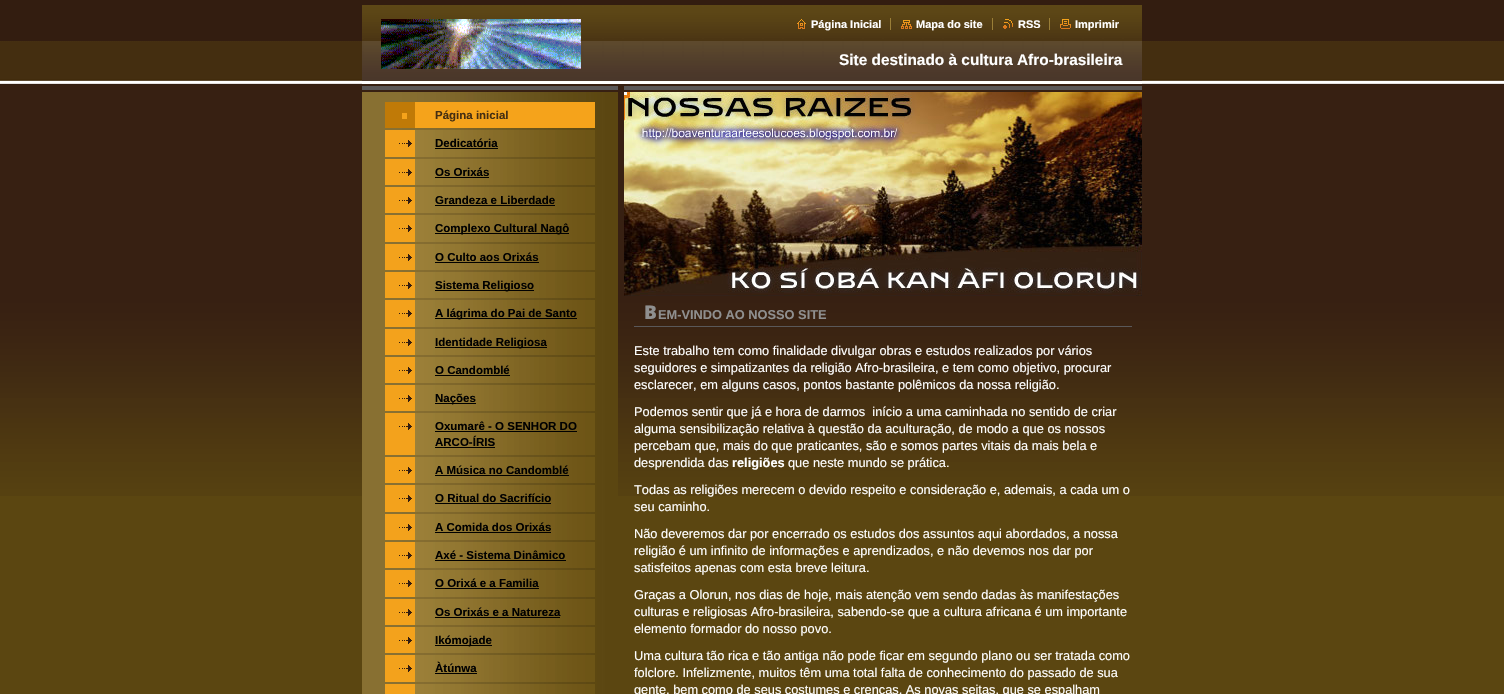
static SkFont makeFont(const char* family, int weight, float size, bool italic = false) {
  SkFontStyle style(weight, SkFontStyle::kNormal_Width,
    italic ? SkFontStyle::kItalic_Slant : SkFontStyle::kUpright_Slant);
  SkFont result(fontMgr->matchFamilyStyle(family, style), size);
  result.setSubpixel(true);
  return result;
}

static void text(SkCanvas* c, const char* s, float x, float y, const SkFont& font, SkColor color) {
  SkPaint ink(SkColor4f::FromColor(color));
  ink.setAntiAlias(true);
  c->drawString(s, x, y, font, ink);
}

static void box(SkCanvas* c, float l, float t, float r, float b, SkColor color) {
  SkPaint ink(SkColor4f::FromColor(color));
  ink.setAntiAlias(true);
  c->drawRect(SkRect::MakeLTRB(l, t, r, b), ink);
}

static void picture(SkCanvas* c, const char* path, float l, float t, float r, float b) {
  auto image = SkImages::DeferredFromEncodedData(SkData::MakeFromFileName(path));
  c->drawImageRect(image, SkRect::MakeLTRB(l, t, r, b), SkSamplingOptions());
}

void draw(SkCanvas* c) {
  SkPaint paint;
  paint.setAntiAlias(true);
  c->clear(0xff5b4611);
  picture(c, "img_01.png", 0, 0, 1504, 496);
  picture(c, "img_02.png", 362, 0, 1142, 81);
  box(c, 362, 83, 1142, 84, 0xffffffff);
  picture(c, "img_03.png", 381, 19, 581, 69);
  picture(c, "img_04.png", 797, 19, 806, 29);
  SkFont face1 = makeFont("Liberation Sans", 700, 11);
  text(c, "Página Inicial", 811, 28, face1, 0xffffffff);
  picture(c, "img_05.png", 901, 20, 912, 29);
  text(c, "Mapa do site", 916, 28, face1, 0xffffffff);
  box(c, 890, 18, 891, 30, 0xff9a7e37);
  picture(c, "img_06.png", 1003, 19, 1013, 29);
  text(c, "RSS", 1018, 28, face1, 0xffffffff);
  box(c, 992, 18, 993, 30, 0xff9a7e37);
  picture(c, "img_07.png", 1060, 19, 1071, 29);
  text(c, "Imprimir", 1075, 28, face1, 0xffffffff);
  box(c, 1049, 18, 1050, 30, 0xff9a7e37);
  SkFont face2 = makeFont("Liberation Sans", 700, 15.4f);
  text(c, "Site destinado à cultura Afro-brasileira", 839, 65, face2, 0xffffffff);
  box(c, 362, 84, 1142, 85, 0xff372012);
  picture(c, "img_08.png", 362, 86, 618, 92);
  picture(c, "img_09.png", 362, 92, 618, 694);
  picture(c, "img_10.png", 385, 102, 595, 128);
  box(c, 402, 113, 407, 119, 0xfff5a31b);
  SkFont face3 = makeFont("Liberation Sans", 700, 11.5f);
  text(c, "Página inicial", 435, 119, face3, 0xff442e12);
  picture(c, "img_11.png", 385, 130, 595, 157);
  picture(c, "img_12.png", 399, 140, 412, 147);
  text(c, "Dedicatória", 435, 147, face3, 0xff000000);
  box(c, 435, 148, 498, 149, 0xff000000);
  picture(c, "img_13.png", 385, 159, 595, 185);
  picture(c, "img_12.png", 399, 169, 412, 176);
  text(c, "Os Orixás", 435, 176, face3, 0xff000000);
  box(c, 435, 177, 489, 178, 0xff000000);
  picture(c, "img_13.png", 385, 187, 595, 213);
  picture(c, "img_12.png", 399, 197, 412, 204);
  text(c, "Grandeza e Liberdade", 435, 204, face3, 0xff000000);
  box(c, 435, 205, 555, 206, 0xff000000);
  picture(c, "img_11.png", 385, 215, 595, 242);
  picture(c, "img_12.png", 399, 225, 412, 232);
  box(c, 435, 233, 569, 234, 0xff000000);
  text(c, "Complexo Cultural Nagô", 435, 232, face3, 0xff000000);
  picture(c, "img_13.png", 385, 244, 595, 270);
  picture(c, "img_12.png", 399, 254, 412, 261);
  text(c, "O Culto aos Orixás", 435, 261, face3, 0xff000000);
  box(c, 435, 262, 539, 263, 0xff000000);
  picture(c, "img_13.png", 385, 272, 595, 298);
  picture(c, "img_12.png", 399, 282, 412, 289);
  box(c, 435, 290, 534, 291, 0xff000000);
  text(c, "Sistema Religioso", 435, 289, face3, 0xff000000);
  picture(c, "img_11.png", 385, 300, 595, 327);
  picture(c, "img_12.png", 399, 310, 412, 317);
  box(c, 435, 318, 577, 319, 0xff000000);
  text(c, "A lágrima do Pai de Santo", 435, 317, face3, 0xff000000);
  picture(c, "img_13.png", 385, 329, 595, 355);
  picture(c, "img_12.png", 399, 339, 412, 346);
  box(c, 435, 347, 547, 348, 0xff000000);
  text(c, "Identidade Religiosa", 435, 346, face3, 0xff000000);
  picture(c, "img_13.png", 385, 357, 595, 383);
  picture(c, "img_12.png", 399, 367, 412, 374);
  text(c, "O Candomblé", 435, 374, face3, 0xff000000);
  box(c, 435, 375, 510, 376, 0xff000000);
  picture(c, "img_13.png", 385, 385, 595, 411);
  picture(c, "img_12.png", 399, 395, 412, 402);
  box(c, 435, 403, 476, 404, 0xff000000);
  text(c, "Nações", 435, 402, face3, 0xff000000);
  picture(c, "img_14.png", 385, 413, 595, 455);
  picture(c, "img_12.png", 399, 423, 412, 430);
  text(c, "Oxumarê - O SENHOR DO", 435, 430, face3, 0xff000000);
  box(c, 435, 431, 577, 432, 0xff000000);
  text(c, "ARCO-ÍRIS", 435, 446, face3, 0xff000000);
  box(c, 435, 447, 495, 448, 0xff000000);
  picture(c, "img_13.png", 385, 457, 595, 483);
  picture(c, "img_12.png", 399, 467, 412, 474);
  text(c, "A Música no Candomblé", 435, 474, face3, 0xff000000);
  box(c, 435, 475, 569, 476, 0xff000000);
  picture(c, "img_11.png", 385, 485, 595, 512);
  picture(c, "img_12.png", 399, 495, 412, 502);
  text(c, "O Ritual do Sacrifício", 435, 502, face3, 0xff000000);
  box(c, 435, 503, 551, 504, 0xff000000);
  picture(c, "img_13.png", 385, 514, 595, 540);
  picture(c, "img_12.png", 399, 524, 412, 531);
  text(c, "A Comida dos Orixás", 435, 531, face3, 0xff000000);
  box(c, 435, 532, 551, 533, 0xff000000);
  picture(c, "img_13.png", 385, 542, 595, 568);
  picture(c, "img_12.png", 399, 552, 412, 559);
  text(c, "Axé - Sistema Dinâmico", 435, 559, face3, 0xff000000);
  box(c, 435, 560, 566, 561, 0xff000000);
  picture(c, "img_11.png", 385, 570, 595, 597);
  picture(c, "img_12.png", 399, 580, 412, 587);
  text(c, "O Orixá e a Familia", 435, 587, face3, 0xff000000);
  box(c, 435, 588, 539, 589, 0xff000000);
  picture(c, "img_13.png", 385, 599, 595, 625);
  picture(c, "img_12.png", 399, 609, 412, 616);
  text(c, "Os Orixás e a Natureza", 435, 616, face3, 0xff000000);
  box(c, 435, 617, 560, 618, 0xff000000);
  picture(c, "img_13.png", 385, 627, 595, 653);
  picture(c, "img_12.png", 399, 637, 412, 644);
  box(c, 435, 645, 492, 646, 0xff000000);
  text(c, "Ikómojade", 435, 644, face3, 0xff000000);
  picture(c, "img_11.png", 385, 655, 595, 682);
  picture(c, "img_12.png", 399, 665, 412, 672);
  text(c, "Àtúnwa", 435, 672, face3, 0xff000000);
  box(c, 435, 673, 477, 674, 0xff000000);
  picture(c, "img_15.png", 385, 684, 595, 694);
  box(c, 624, 86, 1142, 90, 0xff5b5858);
  picture(c, "img_16.png", 624, 92, 1142, 296);
  box(c, 634, 326, 1132, 327, 0xff5a5859);
  SkFont face4 = makeFont("Noto Sans", 900, 19);
  text(c, "B", 644, 319, face4, 0xff8f8f8f);
  SkFont face5 = makeFont("Liberation Sans", 700, 12.8f);
  text(c, "EM-VINDO AO NOSSO SITE", 658, 319, face5, 0xff8f8f8f);
  SkFont face6 = makeFont("Liberation Sans", 400, 12.8f);
  text(c, "Este trabalho tem como finalidade divulgar obras e estudos realizados por vários", 634, 355, face6, 0xffffffff);
  text(c, "seguidores e simpatizantes da religião Afro-brasileira, e tem como objetivo, procurar", 634, 372, face6, 0xffffffff);
  text(c, "esclarecer, em alguns casos, pontos bastante polêmicos da nossa religião.", 634, 389, face6, 0xffffffff);
  text(c, "Podemos sentir que já e hora de darmos  início a uma caminhada no sentido de criar", 634, 416, face6, 0xffffffff);
  text(c, "alguma sensibilização relativa à questão da aculturação, de modo a que os nossos", 634, 433, face6, 0xffffffff);
  text(c, "percebam que, mais do que praticantes, são e somos partes vitais da mais bela e", 634, 450, face6, 0xffffffff);
  text(c, "desprendida das", 634, 467, face6, 0xffffffff);
  text(c, "religiões", 732, 467, face5, 0xffffffff);
  text(c, "que neste mundo se prática.", 788, 467, face6, 0xffffffff);
  text(c, "Todas as religiões merecem o devido respeito e consideração e, ademais, a cada um o", 634, 494, face6, 0xffffffff);
  text(c, "seu caminho.", 634, 511, face6, 0xffffffff);
  text(c, "Não deveremos dar por encerrado os estudos dos assuntos aqui abordados, a nossa", 634, 538, face6, 0xffffffff);
  text(c, "religião é um infinito de informações e aprendizados, e não devemos nos dar por", 634, 555, face6, 0xffffffff);
  text(c, "satisfeitos apenas com esta breve leitura.", 634, 572, face6, 0xffffffff);
  text(c, "Graças a Olorun, nos dias de hoje, mais atenção vem sendo dadas às manifestações", 634, 599, face6, 0xffffffff);
  text(c, "culturas e religiosas Afro-brasileira, sabendo-se que a cultura africana é um importante", 634, 616, face6, 0xffffffff);
  text(c, "elemento formador do nosso povo.", 634, 633, face6, 0xffffffff);
  text(c, "Uma cultura tão rica e tão antiga não pode ficar em segundo plano ou ser tratada como", 634, 660, face6, 0xffffffff);
  text(c, "folclore. Infelizmente, muitos têm uma total falta de conhecimento do passado de sua", 634, 677, face6, 0xffffffff);
  text(c, "gente, bem como de seus costumes e crenças. As novas seitas, que se espalham", 634, 694, face6, 0xffffffff);
}
